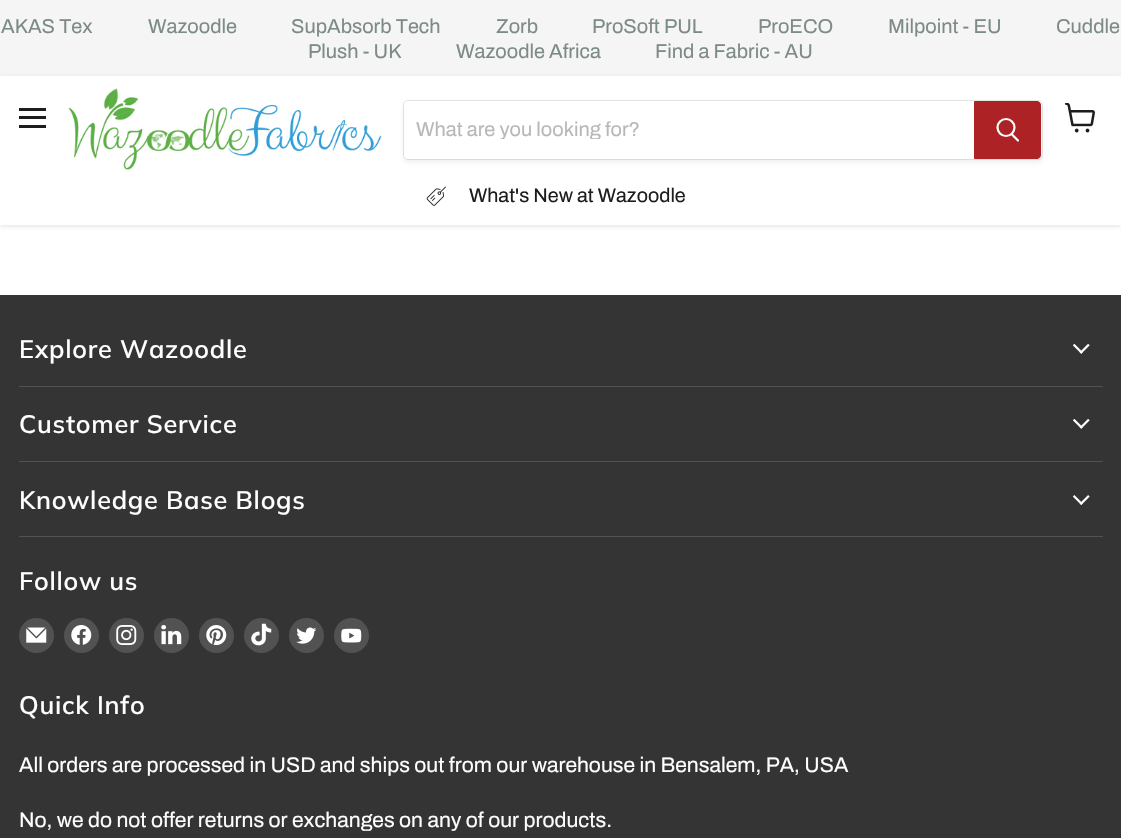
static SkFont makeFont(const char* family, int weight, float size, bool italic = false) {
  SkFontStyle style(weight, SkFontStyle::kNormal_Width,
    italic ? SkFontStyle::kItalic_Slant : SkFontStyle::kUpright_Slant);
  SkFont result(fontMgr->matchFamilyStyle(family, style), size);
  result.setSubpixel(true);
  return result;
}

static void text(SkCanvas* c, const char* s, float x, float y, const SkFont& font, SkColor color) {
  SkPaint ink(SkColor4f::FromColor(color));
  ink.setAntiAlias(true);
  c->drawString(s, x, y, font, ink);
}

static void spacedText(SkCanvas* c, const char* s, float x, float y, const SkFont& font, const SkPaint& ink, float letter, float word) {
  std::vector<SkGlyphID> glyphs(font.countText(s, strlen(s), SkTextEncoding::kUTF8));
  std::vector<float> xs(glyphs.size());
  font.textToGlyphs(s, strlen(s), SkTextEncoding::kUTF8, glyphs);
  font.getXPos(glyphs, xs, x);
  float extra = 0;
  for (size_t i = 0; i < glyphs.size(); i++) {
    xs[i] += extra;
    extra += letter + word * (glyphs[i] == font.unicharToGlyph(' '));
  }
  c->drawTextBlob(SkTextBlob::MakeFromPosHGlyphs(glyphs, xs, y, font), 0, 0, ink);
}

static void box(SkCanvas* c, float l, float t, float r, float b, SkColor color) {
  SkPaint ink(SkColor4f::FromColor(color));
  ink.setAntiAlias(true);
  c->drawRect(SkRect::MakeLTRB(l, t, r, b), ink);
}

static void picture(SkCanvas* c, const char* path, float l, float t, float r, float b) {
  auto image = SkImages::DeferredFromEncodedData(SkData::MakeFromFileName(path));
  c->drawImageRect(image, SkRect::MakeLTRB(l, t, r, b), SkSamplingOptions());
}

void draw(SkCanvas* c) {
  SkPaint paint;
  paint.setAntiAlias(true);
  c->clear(0xffffffff);
  box(c, 0, 0, 1121, 76, 0xfff5f5f5);
  SkFont face1 = makeFont("Archivo", 600, 20);
  text(c, "AKAS Tex", 1, 33, face1, 0xff7d8b86);
  text(c, "Wazoodle", 148, 33, face1, 0xff7d8b86);
  text(c, "SupAbsorb Tech", 291, 33, face1, 0xff7d8b86);
  text(c, "Zorb", 496, 33, face1, 0xff7d8b86);
  text(c, "ProSoft PUL", 592, 33, face1, 0xff7d8b86);
  text(c, "ProECO", 758, 33, face1, 0xff7d8b86);
  text(c, "Milpoint - EU", 888, 33, face1, 0xff7d8b86);
  text(c, "Cuddle", 1056, 33, face1, 0xff7d8b86);
  text(c, "Plush - UK", 308, 58, face1, 0xff7d8b86);
  text(c, "Wazoodle Africa", 456, 58, face1, 0xff7d8b86);
  text(c, "Find a Fabric - AU", 655, 58, face1, 0xff7d8b86);
  paint.setColor(0x40808080);
  paint.setMaskFilter(SkMaskFilter::MakeBlur(kNormal_SkBlurStyle, 2.5f));
  c->drawRect(SkRect::MakeLTRB(0, 78, 1121, 226), paint);
  paint.setMaskFilter(nullptr);
  box(c, 0, 76, 1121, 225, 0xffffffff);
  box(c, 19, 108, 46, 111, 0xff1d1d1d);
  box(c, 19, 116, 46, 119, 0xff1d1d1d);
  box(c, 19, 125, 46, 128, 0xff1d1d1d);
  picture(c, "img_01.png", 1065, 103, 1095, 133);
  picture(c, "img_02.png", 68, 88, 382, 170);
  paint.setColor(0x1c808080);
  paint.setMaskFilter(SkMaskFilter::MakeBlur(kNormal_SkBlurStyle, 2));
  c->drawRoundRect(SkRect::MakeLTRB(403, 103, 1043, 163), 5, 5, paint);
  paint.setMaskFilter(nullptr);
  paint.setStyle(SkPaint::kStroke_Style);
  paint.setStrokeWidth(1);
  paint.setColor(0x33808080);
  c->drawRoundRect(SkRect::MakeLTRB(403.5f, 100.5f, 1042.5f, 159.5f), 4.5f, 4.5f, paint);
  paint.setStyle(SkPaint::kFill_Style);
  paint.setColor(0xffffffff);
  c->drawPath(SkPathBuilder().moveTo(408, 101).lineTo(974, 101).lineTo(974, 159).lineTo(408, 159).cubicTo(406, 159, 404, 157, 404, 155).lineTo(404, 105).cubicTo(404, 103, 406, 101, 408, 101).close().detach(), paint);
  c->save();
  c->clipRect(SkRect::MakeLTRB(416, 118, 961, 139));
  text(c, "What are you looking for?", 416, 136, face1, 0xffb8b8b8);
  c->restore();
  paint.setColor(0xffac2225);
  c->drawPath(SkPathBuilder().moveTo(974.5f, 101.5f).lineTo(1037, 101.5f).cubicTo(1039, 101.5f, 1040.5f, 103, 1040.5f, 105).lineTo(1040.5f, 155).cubicTo(1040.5f, 157, 1039, 158.5f, 1037, 158.5f).lineTo(974.5f, 158.5f).close().detach(), paint);
  paint.setStyle(SkPaint::kStroke_Style);
  c->drawPath(SkPathBuilder().moveTo(974.5f, 101.5f).lineTo(1037, 101.5f).cubicTo(1039, 101.5f, 1040.5f, 103, 1040.5f, 105).lineTo(1040.5f, 155).cubicTo(1040.5f, 157, 1039, 158.5f, 1037, 158.5f).lineTo(974.5f, 158.5f).close().detach(), paint);
  paint.setStrokeWidth(2.2f);
  paint.setStrokeCap(SkPaint::kRound_Cap);
  paint.setColor(0xffffffff);
  c->drawPath(SkPathBuilder().moveTo(1018, 140.5f).lineTo(1012, 134.5f).detach(), paint);
  paint.setStrokeCap(SkPaint::kButt_Cap);
  c->drawCircle(1006, 127.5f, 8.5f, paint);
  picture(c, "img_03.png", 426, 186, 446, 206);
  SkFont face2 = makeFont("Archivo", 600, 19.75f);
  text(c, "What's New at Wazoodle", 469, 202, face2, 0xff1d1d1d);
  box(c, 0, 295, 1121, 838, 0xff343434);
  box(c, 19, 386, 1103, 387, 0xff525252);
  SkFont face3 = makeFont("Muli", 600, 25.25f);
  paint.setStyle(SkPaint::kFill_Style);
  spacedText(c, "Explore Wazoodle", 19, 358, face3, paint, 0.75f, 0);
  picture(c, "img_04.png", 1073, 344, 1090, 354);
  box(c, 19, 461, 1103, 462, 0xff525252);
  spacedText(c, "Customer Service", 19, 433, face3, paint, 0.75f, 0);
  picture(c, "img_04.png", 1073, 419, 1090, 429);
  box(c, 19, 536, 1103, 537, 0xff525252);
  spacedText(c, "Knowledge Base Blogs", 19, 509, face3, paint, 0.75f, 0);
  picture(c, "img_05.png", 1073, 495, 1090, 505);
  spacedText(c, "Follow us", 19, 590, face3, paint, 0.75f, 0);
  paint.setColor(0xff525252);
  c->drawCircle(36.5f, 635.5f, 17.5f, paint);
  picture(c, "img_06.png", 26, 627, 47, 643);
  c->drawCircle(81.5f, 635.5f, 17.5f, paint);
  picture(c, "img_07.png", 71, 625, 92, 645);
  c->drawCircle(126.5f, 635.5f, 17.5f, paint);
  picture(c, "img_08.png", 116, 625, 137, 645);
  c->drawCircle(171.5f, 635.5f, 17.5f, paint);
  picture(c, "img_09.png", 161, 625, 182, 645);
  c->drawCircle(216.5f, 635.5f, 17.5f, paint);
  picture(c, "img_10.png", 206, 625, 227, 646);
  c->drawCircle(261.5f, 635.5f, 17.5f, paint);
  picture(c, "img_11.png", 251, 623, 272, 646);
  c->drawCircle(306.5f, 635.5f, 17.5f, paint);
  picture(c, "img_12.png", 296, 627, 317, 644);
  c->drawCircle(351.5f, 635.5f, 17.5f, paint);
  picture(c, "img_13.png", 341, 628, 362, 643);
  paint.setColor(0xffffffff);
  spacedText(c, "Quick Info", 19, 714, face3, paint, 0.75f, 0);
  SkFont face4 = makeFont("Archivo", 600, 21.1f);
  text(c, "All orders are processed in USD and ships out from our warehouse in Bensalem, PA, USA", 19, 772, face4, 0xffffffff);
  text(c, "No, we do not offer returns or exchanges on any of our products.", 19, 827, face4, 0xffffffff);
}
